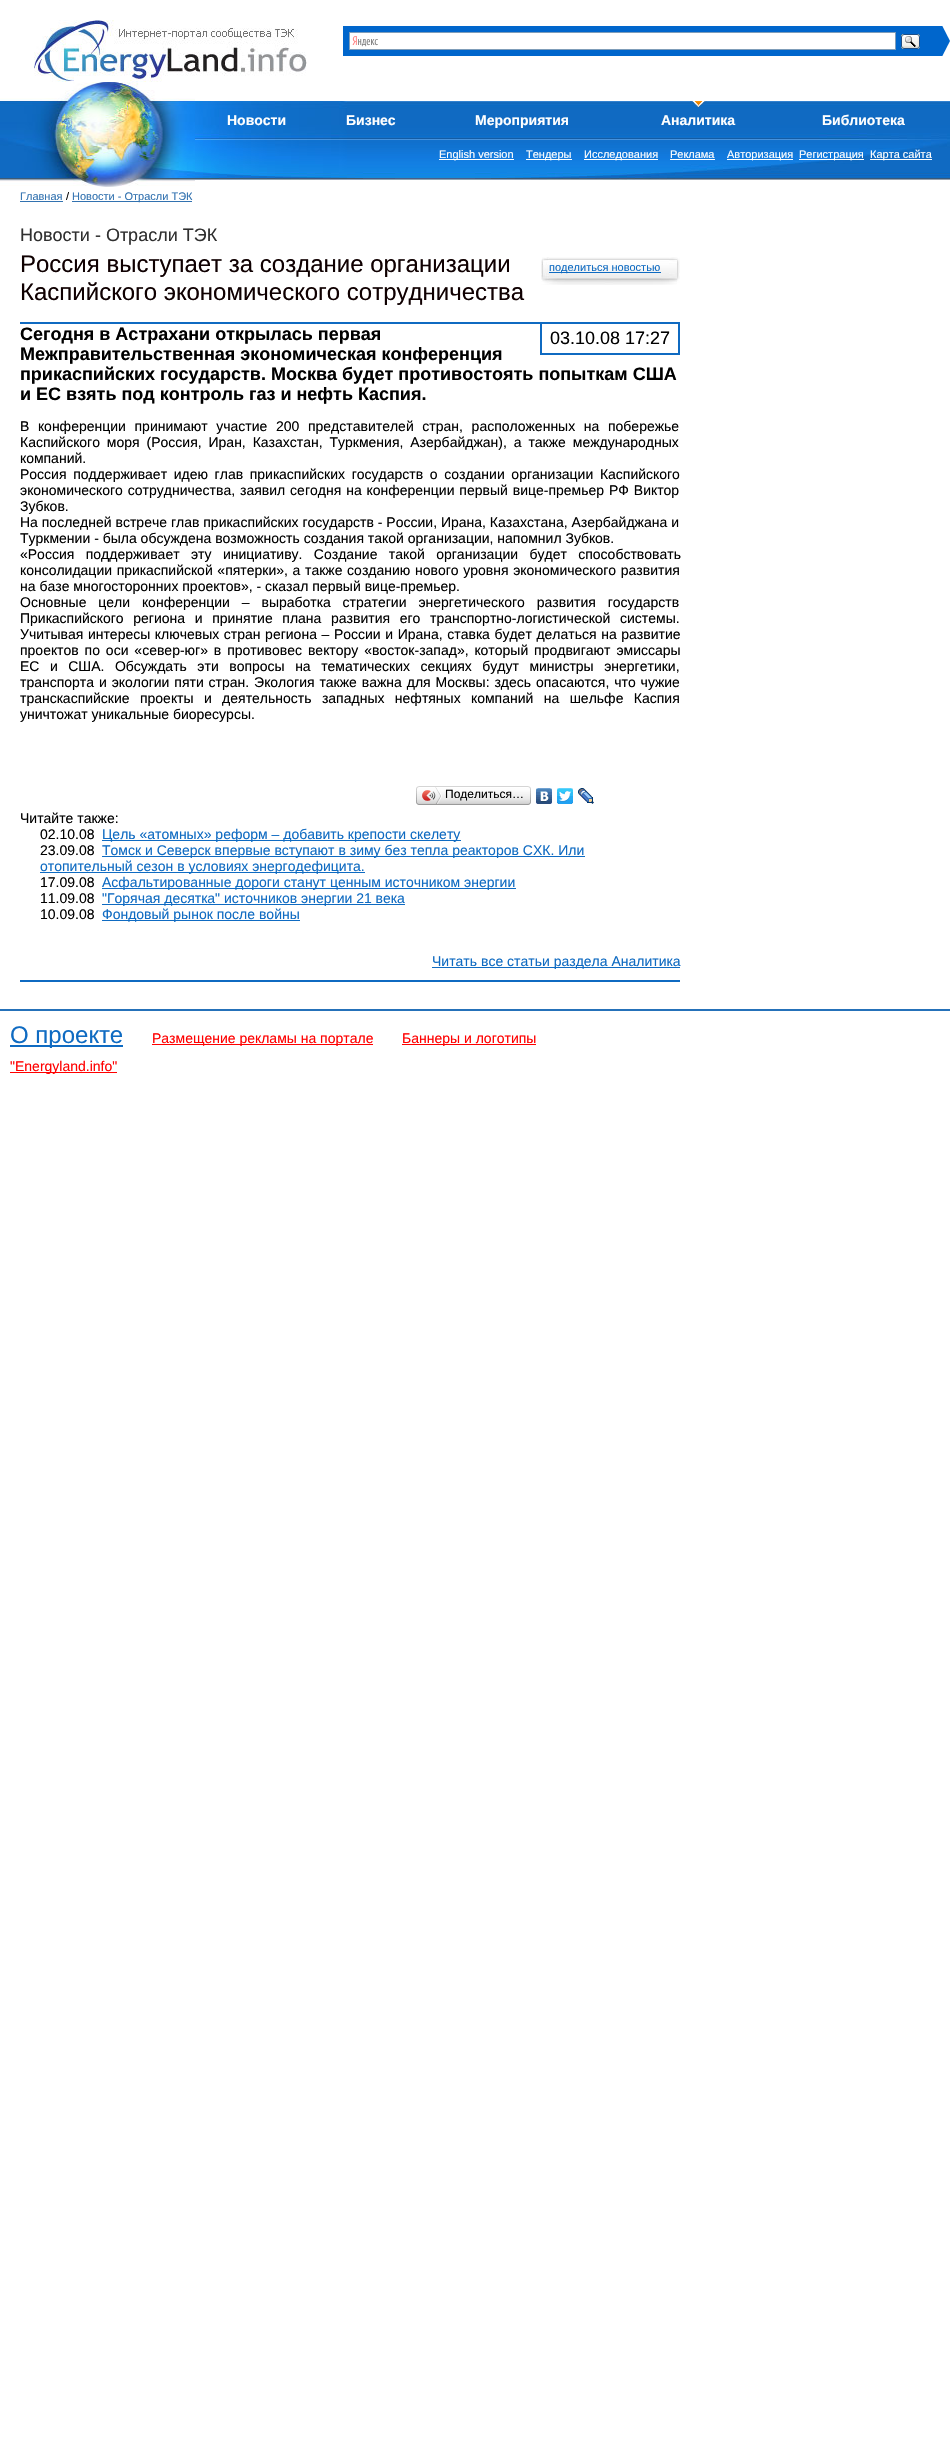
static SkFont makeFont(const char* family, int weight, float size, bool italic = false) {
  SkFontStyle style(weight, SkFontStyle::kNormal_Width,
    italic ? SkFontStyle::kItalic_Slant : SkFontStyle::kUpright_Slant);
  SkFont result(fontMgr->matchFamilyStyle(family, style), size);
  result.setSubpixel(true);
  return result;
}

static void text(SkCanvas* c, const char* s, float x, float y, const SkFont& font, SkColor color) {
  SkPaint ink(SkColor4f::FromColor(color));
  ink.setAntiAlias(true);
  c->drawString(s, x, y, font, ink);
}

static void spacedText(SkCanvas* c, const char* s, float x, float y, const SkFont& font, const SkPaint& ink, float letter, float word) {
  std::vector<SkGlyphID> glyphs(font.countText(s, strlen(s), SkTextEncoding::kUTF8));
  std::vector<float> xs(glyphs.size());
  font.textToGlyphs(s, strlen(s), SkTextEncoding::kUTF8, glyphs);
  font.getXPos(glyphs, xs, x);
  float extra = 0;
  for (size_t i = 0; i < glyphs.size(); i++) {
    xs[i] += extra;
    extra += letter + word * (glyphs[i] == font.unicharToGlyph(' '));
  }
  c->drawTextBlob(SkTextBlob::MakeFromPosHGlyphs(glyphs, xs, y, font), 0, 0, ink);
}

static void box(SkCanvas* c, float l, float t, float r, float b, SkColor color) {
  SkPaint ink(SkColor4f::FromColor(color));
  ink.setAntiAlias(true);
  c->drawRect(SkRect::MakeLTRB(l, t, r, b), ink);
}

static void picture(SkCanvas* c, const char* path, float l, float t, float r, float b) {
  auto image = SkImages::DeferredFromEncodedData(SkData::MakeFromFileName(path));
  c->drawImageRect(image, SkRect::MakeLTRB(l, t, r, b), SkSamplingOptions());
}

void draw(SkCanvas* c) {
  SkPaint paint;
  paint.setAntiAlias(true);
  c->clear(0xffffffff);
  picture(c, "img_01.png", 34, 20, 307, 82);
  box(c, 343, 26, 920, 56, 0xff0066cc);
  box(c, 350, 33, 895, 49, 0xffffffff);
  picture(c, "img_02.png", 352, 36, 378, 47);
  paint.setStyle(SkPaint::kStroke_Style);
  paint.setStrokeWidth(1);
  paint.setColor(0xff7f9db9);
  c->drawRect(SkRect::MakeLTRB(349.5f, 32.5f, 895.5f, 49.5f), paint);
  picture(c, "img_03.png", 901, 34, 920, 49);
  c->save();
  c->clipRect(SkRect::MakeLTRB(920, 26, 950, 56));
  paint.setStyle(SkPaint::kFill_Style);
  paint.setColor(0xff0066cc);
  c->drawPath(SkPathBuilder().moveTo(920, 100).lineTo(920, -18).lineTo(950, 41).close().detach(), paint);
  c->restore();
  picture(c, "img_04.png", 0, 82, 195, 187);
  picture(c, "img_05.png", 195, 101, 950, 140);
  SkFont face1 = makeFont("Liberation Sans", 700, 14);
  text(c, "Новости", 227, 125, face1, 0xffffffff);
  text(c, "Бизнес", 346, 125, face1, 0xffffffff);
  text(c, "Мероприятия", 475, 125, face1, 0xffffffff);
  picture(c, "img_06.png", 690, 101, 707, 107);
  text(c, "Аналитика", 661, 125, face1, 0xffffffff);
  text(c, "Библиотека", 822, 125, face1, 0xffffffff);
  picture(c, "img_07.png", 195, 140, 950, 180);
  box(c, 439, 159, 514, 160, 0xffffffff);
  SkFont face2 = makeFont("Liberation Sans", 400, 11);
  text(c, "English version", 439, 158, face2, 0xffffffff);
  box(c, 526, 159, 572, 160, 0xffffffff);
  text(c, "Тендеры", 526, 158, face2, 0xffffffff);
  box(c, 584, 159, 658, 160, 0xffffffff);
  text(c, "Исследования", 584, 158, face2, 0xffffffff);
  text(c, "Реклама", 670, 158, face2, 0xffffffff);
  box(c, 670, 159, 715, 160, 0xffffffff);
  box(c, 727, 159, 793, 160, 0xffffffff);
  text(c, "Авторизация", 727, 158, face2, 0xffffffff);
  box(c, 799, 159, 864, 160, 0xffffffff);
  text(c, "Регистрация", 799, 158, face2, 0xffffffff);
  box(c, 870, 159, 932, 160, 0xffffffff);
  text(c, "Карта сайта", 870, 158, face2, 0xffffffff);
  text(c, "Главная", 20, 200, face2, 0xff3272b0);
  box(c, 20, 201, 63, 202, 0xff3272b0);
  text(c, "/", 66, 200, face2, 0xff000000);
  box(c, 72, 201, 192, 202, 0xff3272b0);
  text(c, "Новости - Отрасли ТЭК", 72, 200, face2, 0xff3272b0);
  SkFont face3 = makeFont("Liberation Sans", 400, 18);
  text(c, "Новости - Отрасли ТЭК", 20, 241, face3, 0xff303030);
  SkFont face4 = makeFont("Liberation Sans", 400, 24);
  text(c, "Россия выступает за создание организации", 20, 272, face4, 0xff0f0001);
  text(c, "Каспийского экономического сотрудничества", 20, 300, face4, 0xff0f0001);
  picture(c, "img_08.png", 541, 257, 680, 285);
  box(c, 549, 272, 661, 273, 0xff0f6bc2);
  text(c, "поделиться новостью", 549, 271, face2, 0xff0f6bc2);
  box(c, 20, 322, 680, 324, 0xff0f6ac1);
  SkFont face5 = makeFont("Liberation Sans", 700, 18);
  text(c, "Сегодня в Астрахани открылась первая", 20, 340, face5, 0xff000000);
  box(c, 678, 324, 680, 355, 0xff0f6ac1);
  box(c, 540, 353, 680, 355, 0xff0f6ac1);
  box(c, 540, 324, 542, 355, 0xff0f6ac1);
  text(c, "03.10.08 17:27", 550, 344, face3, 0xff000000);
  text(c, "Межправительственная экономическая конференция", 20, 360, face5, 0xff000000);
  text(c, "прикаспийских государств. Москва будет противостоять попыткам США", 20, 380, face5, 0xff000000);
  text(c, "и ЕС взять под контроль газ и нефть Каспия.", 20, 400, face5, 0xff000000);
  SkFont face6 = makeFont("Liberation Sans", 400, 14);
  paint.setColor(0xff000000);
  spacedText(c, "В конференции принимают участие 200 представителей стран, расположенных на побережье", 20, 431, face6, paint, 0, 4.75f);
  spacedText(c, "Каспийского моря (Россия, Иран, Казахстан, Туркмения, Азербайджан), а также международных", 20, 447, face6, paint, 0, 3);
  text(c, "компаний.", 20, 463, face6, 0xff000000);
  spacedText(c, "Россия поддерживает идею глав прикаспийских государств о создании организации Каспийского", 20, 479, face6, paint, 0, 2.75f);
  spacedText(c, "экономического сотрудничества, заявил сегодня на конференции первый вице-премьер РФ Виктор", 20, 495, face6, paint, 0, 1);
  text(c, "Зубков.", 20, 511, face6, 0xff000000);
  text(c, "На последней встрече глав прикаспийских государств - России, Ирана, Казахстана, Азербайджана и", 20, 527, face6, 0xff000000);
  text(c, "Туркмении - была обсуждена возможность создания такой организации, напомнил Зубков.", 20, 543, face6, 0xff000000);
  spacedText(c, "«Россия поддерживает эту инициативу. Создание такой организации будет способствовать", 20, 559, face6, paint, 0, 7.5f);
  spacedText(c, "консолидации прикаспийской «пятерки», а также созданию нового уровня экономического развития", 20, 575, face6, paint, 0, 0.75f);
  text(c, "на базе многосторонних проектов», - сказал первый вице-премьер.", 20, 591, face6, 0xff000000);
  spacedText(c, "Основные цели конференции – выработка стратегии энергетического развития государств", 20, 607, face6, paint, 0, 8);
  spacedText(c, "Прикаспийского региона и принятие плана развития его транспортно-логистической системы.", 20, 623, face6, paint, 0, 5.75f);
  spacedText(c, "Учитывая интересы ключевых стран региона – России и Ирана, ставка будет делаться на развитие", 20, 639, face6, paint, 0, 0.7f);
  spacedText(c, "проектов по оси «север-юг» в противовес вектору «восток-запад», который продвигают эмиссары", 20, 655, face6, paint, 0, 2);
  spacedText(c, "ЕС и США. Обсуждать эти вопросы на тематических секциях будут министры энергетики,", 20, 671, face6, paint, 0, 6.6f);
  spacedText(c, "транспорта и экологии пяти стран. Экология также важна для Москвы: здесь опасаются, что чужие", 20, 687, face6, paint, 0, 1);
  spacedText(c, "транскаспийские проекты и деятельность западных нефтяных компаний на шельфе Каспия", 20, 703, face6, paint, 0, 6.5f);
  text(c, "уничтожат уникальные биоресурсы.", 20, 719, face6, 0xff000000);
  picture(c, "img_09.png", 419, 786, 528, 805);
  picture(c, "img_10.png", 416, 786, 419, 805);
  picture(c, "img_11.png", 422, 787, 442, 804);
  SkFont face7 = makeFont("Liberation Sans", 400, 12);
  text(c, "Поделиться…", 445, 798, face7, 0xff000000);
  picture(c, "img_12.png", 528, 786, 531, 805);
  picture(c, "img_13.png", 536, 788, 552, 804);
  picture(c, "img_14.png", 557, 788, 573, 804);
  picture(c, "img_15.png", 578, 788, 594, 804);
  text(c, "Читайте также:", 20, 823, face6, 0xff000000);
  text(c, "02.10.08", 40, 839, face6, 0xff000000);
  box(c, 102, 840, 461, 841, 0xff0f6bc2);
  text(c, "Цель «атомных» реформ – добавить крепости скелету", 102, 839, face6, 0xff0f6bc2);
  text(c, "23.09.08", 40, 855, face6, 0xff000000);
  box(c, 102, 856, 585, 857, 0xff0f6bc2);
  text(c, "Томск и Северск впервые вступают в зиму без тепла реакторов СХК. Или", 102, 855, face6, 0xff0f6bc2);
  box(c, 40, 872, 365, 873, 0xff0f6bc2);
  text(c, "отопительный сезон в условиях энергодефицита.", 40, 871, face6, 0xff0f6bc2);
  text(c, "17.09.08", 40, 887, face6, 0xff000000);
  box(c, 102, 888, 516, 889, 0xff0f6bc2);
  text(c, "Асфальтированные дороги станут ценным источником энергии", 102, 887, face6, 0xff0f6bc2);
  text(c, "11.09.08", 40, 903, face6, 0xff000000);
  box(c, 102, 904, 405, 905, 0xff0f6bc2);
  text(c, "\"Горячая десятка\" источников энергии 21 века", 102, 903, face6, 0xff0f6bc2);
  text(c, "10.09.08", 40, 919, face6, 0xff000000);
  box(c, 102, 920, 300, 921, 0xff0f6bc2);
  text(c, "Фондовый рынок после войны", 102, 919, face6, 0xff0f6bc2);
  box(c, 432, 967, 680, 968, 0xff0f6bc2);
  text(c, "Читать все статьи раздела Аналитика", 432, 966, face6, 0xff0f6bc2);
  box(c, 20, 980, 680, 982, 0xff0f6ac1);
  box(c, 0, 1009, 950, 1011, 0xff2571b9);
  box(c, 10, 1045, 123, 1047, 0xff0f6bc2);
  text(c, "О проекте", 10, 1043, face4, 0xff0f6bc2);
  box(c, 152, 1044, 373, 1045, 0xffff0000);
  text(c, "Размещение рекламы на портале", 152, 1043, face6, 0xffff0000);
  box(c, 402, 1044, 536, 1045, 0xffff0000);
  text(c, "Баннеры и логотипы", 402, 1043, face6, 0xffff0000);
  box(c, 10, 1072, 117, 1073, 0xffff0000);
  text(c, "\"Energyland.info\"", 10, 1071, face6, 0xffff0000);
}
